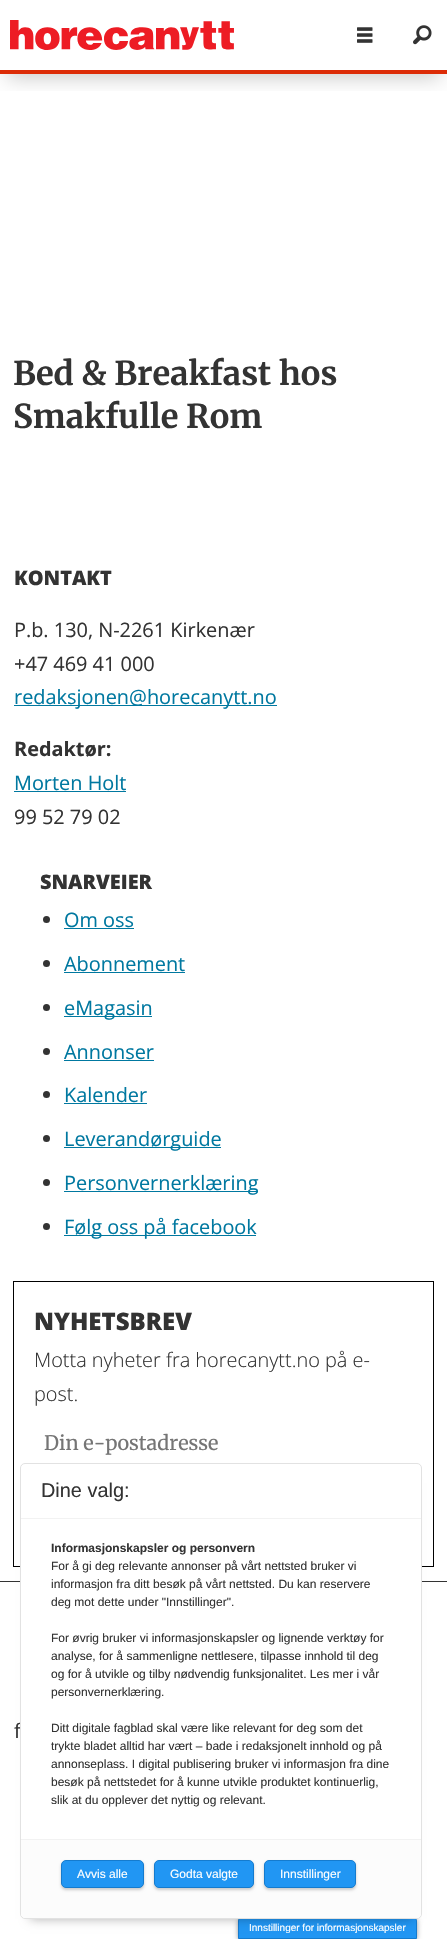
static SkFont makeFont(const char* family, int weight, float size, bool italic = false) {
  SkFontStyle style(weight, SkFontStyle::kNormal_Width,
    italic ? SkFontStyle::kItalic_Slant : SkFontStyle::kUpright_Slant);
  SkFont result(fontMgr->matchFamilyStyle(family, style), size);
  result.setSubpixel(true);
  return result;
}

static void text(SkCanvas* c, const char* s, float x, float y, const SkFont& font, SkColor color) {
  SkPaint ink(SkColor4f::FromColor(color));
  ink.setAntiAlias(true);
  c->drawString(s, x, y, font, ink);
}

static void box(SkCanvas* c, float l, float t, float r, float b, SkColor color) {
  SkPaint ink(SkColor4f::FromColor(color));
  ink.setAntiAlias(true);
  c->drawRect(SkRect::MakeLTRB(l, t, r, b), ink);
}

static void picture(SkCanvas* c, const char* path, float l, float t, float r, float b) {
  auto image = SkImages::DeferredFromEncodedData(SkData::MakeFromFileName(path));
  c->drawImageRect(image, SkRect::MakeLTRB(l, t, r, b), SkSamplingOptions());
}

void draw(SkCanvas* c) {
  SkPaint paint;
  paint.setAntiAlias(true);
  c->clear(0xffffffff);
  c->save();
  c->clipRect(SkRect::MakeLTRB(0, 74, 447, 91));
  paint.setColor(0x33000000);
  paint.setMaskFilter(SkMaskFilter::MakeBlur(kNormal_SkBlurStyle, 10));
  c->drawRect(SkRect::MakeLTRB(7, 18, 440, 78), paint);
  paint.setMaskFilter(nullptr);
  c->restore();
  box(c, 0, 70, 447, 74, 0xffdc2c07);
  picture(c, "img_01.png", 10, 20, 234, 50);
  picture(c, "img_02.png", 357, 27, 373, 43);
  picture(c, "img_03.png", 413, 25, 432, 45);
  SkFont face1 = makeFont("Merriweather", 700, 32.75f);
  text(c, "Bed & Breakfast hos", 13, 385, face1, 0xff333333);
  text(c, "Smakfulle Rom", 13, 428, face1, 0xff333333);
  SkFont face2 = makeFont("Open Sans", 800, 19.9f);
  text(c, "KONTAKT", 14, 585, face2, 0xff333333);
  SkFont face3 = makeFont("Open Sans", 400, 19.9f);
  text(c, "P.b. 130, N-2261 Kirkenær", 14, 637, face3, 0xff333333);
  text(c, "+47 469 41 000", 14, 671, face3, 0xff333333);
  box(c, 14, 705, 277, 706, 0xff0078a0);
  text(c, "redaksjonen@horecanytt.no", 14, 704, face3, 0xff0078a0);
  SkFont face4 = makeFont("Open Sans", 700, 19.9f);
  text(c, "Redaktør:", 14, 756, face4, 0xff333333);
  text(c, "Morten Holt", 14, 790, face3, 0xff0078a0);
  box(c, 14, 791, 126, 792, 0xff0078a0);
  text(c, "99 52 79 02", 14, 824, face3, 0xff333333);
  text(c, "SNARVEIER", 40, 889, face2, 0xff333333);
  paint.setColor(0xff333333);
  c->drawCircle(46.5f, 919.5f, 3.5f, paint);
  text(c, "Om oss", 64, 927, face3, 0xff0078a0);
  box(c, 64, 928, 134, 929, 0xff0078a0);
  c->drawCircle(46.5f, 963.5f, 3.5f, paint);
  text(c, "Abonnement", 64, 971, face3, 0xff0078a0);
  box(c, 64, 972, 185, 973, 0xff0078a0);
  c->drawCircle(46.5f, 1007.5f, 3.5f, paint);
  box(c, 64, 1016, 152, 1017, 0xff0078a0);
  text(c, "eMagasin", 64, 1015, face3, 0xff0078a0);
  c->drawCircle(46.5f, 1051.5f, 3.5f, paint);
  text(c, "Annonser", 64, 1059, face3, 0xff0078a0);
  box(c, 64, 1060, 154, 1061, 0xff0078a0);
  c->drawCircle(46.5f, 1094.5f, 3.5f, paint);
  text(c, "Kalender", 64, 1102, face3, 0xff0078a0);
  box(c, 64, 1103, 147, 1104, 0xff0078a0);
  c->drawCircle(46.5f, 1138.5f, 3.5f, paint);
  box(c, 64, 1147, 221, 1148, 0xff0078a0);
  text(c, "Leverandørguide", 64, 1146, face3, 0xff0078a0);
  c->drawCircle(46.5f, 1182.5f, 3.5f, paint);
  box(c, 64, 1191, 258, 1192, 0xff0078a0);
  text(c, "Personvernerklæring", 64, 1190, face3, 0xff0078a0);
  c->drawCircle(46.5f, 1226.5f, 3.5f, paint);
  box(c, 64, 1235, 256, 1236, 0xff0078a0);
  text(c, "Følg oss på facebook", 64, 1234, face3, 0xff0078a0);
  paint.setStyle(SkPaint::kStroke_Style);
  paint.setStrokeWidth(1);
  paint.setColor(0xff000000);
  c->drawRect(SkRect::MakeLTRB(13.5f, 1281.5f, 433.5f, 1566.5f), paint);
  SkFont face5 = makeFont("Open Sans", 800, 24);
  text(c, "NYHETSBREV", 34, 1330, face5, 0xff333333);
  SkFont face6 = makeFont("Open Sans", 300, 19.9f);
  text(c, "Motta nyheter fra horecanytt.no på e-", 34, 1367, face6, 0xff333333);
  text(c, "post.", 34, 1401, face6, 0xff333333);
  SkFont face7 = makeFont("Merriweather", 400, 19.9f);
  text(c, "Din e-postadresse", 44, 1450, face7, 0xff757575);
  box(c, 0, 1581, 447, 1582, 0xff333333);
  text(c, "f", 14, 1738, face3, 0xff333333);
  paint.setStyle(SkPaint::kFill_Style);
  paint.setColor(0x66000000);
  paint.setMaskFilter(SkMaskFilter::MakeBlur(kNormal_SkBlurStyle, 2.5f));
  c->drawRoundRect(SkRect::MakeLTRB(238, 1918, 417, 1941), 5, 5, paint);
  paint.setMaskFilter(nullptr);
  paint.setColor(0xff2196f3);
  c->drawPath(SkPathBuilder().moveTo(243, 1916.5f).lineTo(412, 1916.5f).cubicTo(414.5f, 1916.5f, 416.5f, 1918.5f, 416.5f, 1921).lineTo(416.5f, 1938.5f).lineTo(238.5f, 1938.5f).lineTo(238.5f, 1921).cubicTo(238.5f, 1918.5f, 240.5f, 1916.5f, 243, 1916.5f).close().detach(), paint);
  paint.setStyle(SkPaint::kStroke_Style);
  paint.setColor(0xff157bce);
  c->drawPath(SkPathBuilder().moveTo(243, 1916.5f).lineTo(412, 1916.5f).cubicTo(414.5f, 1916.5f, 416.5f, 1918.5f, 416.5f, 1921).lineTo(416.5f, 1938.5f).lineTo(238.5f, 1938.5f).lineTo(238.5f, 1921).cubicTo(238.5f, 1918.5f, 240.5f, 1916.5f, 243, 1916.5f).close().detach(), paint);
  paint.setStyle(SkPaint::kFill_Style);
  paint.setColor(0x4d000000);
  paint.setMaskFilter(SkMaskFilter::MakeBlur(kNormal_SkBlurStyle, 5));
  c->drawRect(SkRect::MakeLTRB(30, 1483, 412, 1919), paint);
  paint.setMaskFilter(nullptr);
  paint.setColor(0xffffffff);
  c->drawRoundRect(SkRect::MakeLTRB(20.5f, 1463.5f, 421.5f, 1918.5f), 4.5f, 4.5f, paint);
  paint.setStyle(SkPaint::kStroke_Style);
  paint.setColor(0xffe2e2e2);
  c->drawRoundRect(SkRect::MakeLTRB(20.5f, 1463.5f, 421.5f, 1918.5f), 4.5f, 4.5f, paint);
  box(c, 21, 1518, 421, 1519, 0xfff2f2f2);
  SkFont face8 = makeFont("Liberation Sans", 400, 19.9f);
  text(c, "Dine valg:", 41, 1497, face8, 0xff333333);
  SkFont face9 = makeFont("Liberation Sans", 700, 12);
  text(c, "Informasjonskapsler og personvern", 51, 1552, face9, 0xff333333);
  SkFont face10 = makeFont("Liberation Sans", 400, 12);
  text(c, "For å gi deg relevante annonser på vårt nettsted bruker vi", 51, 1570, face10, 0xff333333);
  text(c, "informasjon fra ditt besøk på vårt nettsted. Du kan reservere", 51, 1588, face10, 0xff333333);
  text(c, "deg mot dette under \"Innstillinger\".", 51, 1606, face10, 0xff333333);
  text(c, "For øvrig bruker vi informasjonskapsler og lignende verktøy for", 51, 1642, face10, 0xff333333);
  text(c, "analyse, for å sammenligne nettlesere, tilpasse innhold til deg", 51, 1660, face10, 0xff333333);
  text(c, "og for å utvikle og tilby nødvendig funksjonalitet. Les mer i vår", 51, 1678, face10, 0xff333333);
  text(c, "personvernerklæring.", 51, 1696, face10, 0xff333333);
  text(c, "Ditt digitale fagblad skal være like relevant for deg som det", 51, 1732, face10, 0xff333333);
  text(c, "trykte bladet alltid har vært – bade i redaksjonelt innhold og på", 51, 1750, face10, 0xff333333);
  text(c, "annonseplass. I digital publisering bruker vi informasjon fra dine", 51, 1768, face10, 0xff333333);
  text(c, "besøk på nettstedet for å kunne utvikle produktet kontinuerlig,", 51, 1786, face10, 0xff333333);
  text(c, "slik at du opplever det nyttig og relevant.", 51, 1804, face10, 0xff333333);
  paint.setStyle(SkPaint::kFill_Style);
  paint.setColor(0xfffcfcfc);
  c->drawPath(SkPathBuilder().moveTo(21, 1839).lineTo(421, 1839).lineTo(421, 1914).cubicTo(421, 1916, 419, 1918, 417, 1918).lineTo(25, 1918).cubicTo(23, 1918, 21, 1916, 21, 1914).close().detach(), paint);
  box(c, 21, 1839, 421, 1840, 0xfff2f2f2);
  paint.setColor(0x33000000);
  paint.setMaskFilter(SkMaskFilter::MakeBlur(kNormal_SkBlurStyle, 1.5f));
  c->drawRoundRect(SkRect::MakeLTRB(61, 1862, 144, 1890), 5, 5, paint);
  paint.setMaskFilter(nullptr);
  paint.setColor(0xff2196f3);
  c->drawRoundRect(SkRect::MakeLTRB(61.5f, 1860.5f, 143.5f, 1887.5f), 4.5f, 4.5f, paint);
  paint.setStyle(SkPaint::kStroke_Style);
  paint.setColor(0xff157bce);
  c->drawRoundRect(SkRect::MakeLTRB(61.5f, 1860.5f, 143.5f, 1887.5f), 4.5f, 4.5f, paint);
  text(c, "Avvis alle", 77, 1878, face10, 0xffffffff);
  paint.setStyle(SkPaint::kFill_Style);
  paint.setColor(0x33000000);
  paint.setMaskFilter(SkMaskFilter::MakeBlur(kNormal_SkBlurStyle, 1.5f));
  c->drawRoundRect(SkRect::MakeLTRB(154, 1862, 254, 1890), 5, 5, paint);
  paint.setMaskFilter(nullptr);
  paint.setColor(0xff2196f3);
  c->drawRoundRect(SkRect::MakeLTRB(154.5f, 1860.5f, 253.5f, 1887.5f), 4.5f, 4.5f, paint);
  paint.setStyle(SkPaint::kStroke_Style);
  paint.setColor(0xff157bce);
  c->drawRoundRect(SkRect::MakeLTRB(154.5f, 1860.5f, 253.5f, 1887.5f), 4.5f, 4.5f, paint);
  text(c, "Godta valgte", 170, 1878, face10, 0xffffffff);
  paint.setStyle(SkPaint::kFill_Style);
  paint.setColor(0x33000000);
  paint.setMaskFilter(SkMaskFilter::MakeBlur(kNormal_SkBlurStyle, 1.5f));
  c->drawRoundRect(SkRect::MakeLTRB(264, 1862, 356, 1890), 5, 5, paint);
  paint.setMaskFilter(nullptr);
  paint.setColor(0xff2196f3);
  c->drawRoundRect(SkRect::MakeLTRB(264.5f, 1860.5f, 355.5f, 1887.5f), 4.5f, 4.5f, paint);
  paint.setStyle(SkPaint::kStroke_Style);
  paint.setColor(0xff157bce);
  c->drawRoundRect(SkRect::MakeLTRB(264.5f, 1860.5f, 355.5f, 1887.5f), 4.5f, 4.5f, paint);
  text(c, "Innstillinger", 280, 1878, face10, 0xffffffff);
  SkFont face11 = makeFont("Liberation Sans", 400, 10);
  text(c, "Innstillinger for informasjonskapsler", 249, 1931, face11, 0xffffffff);
}
